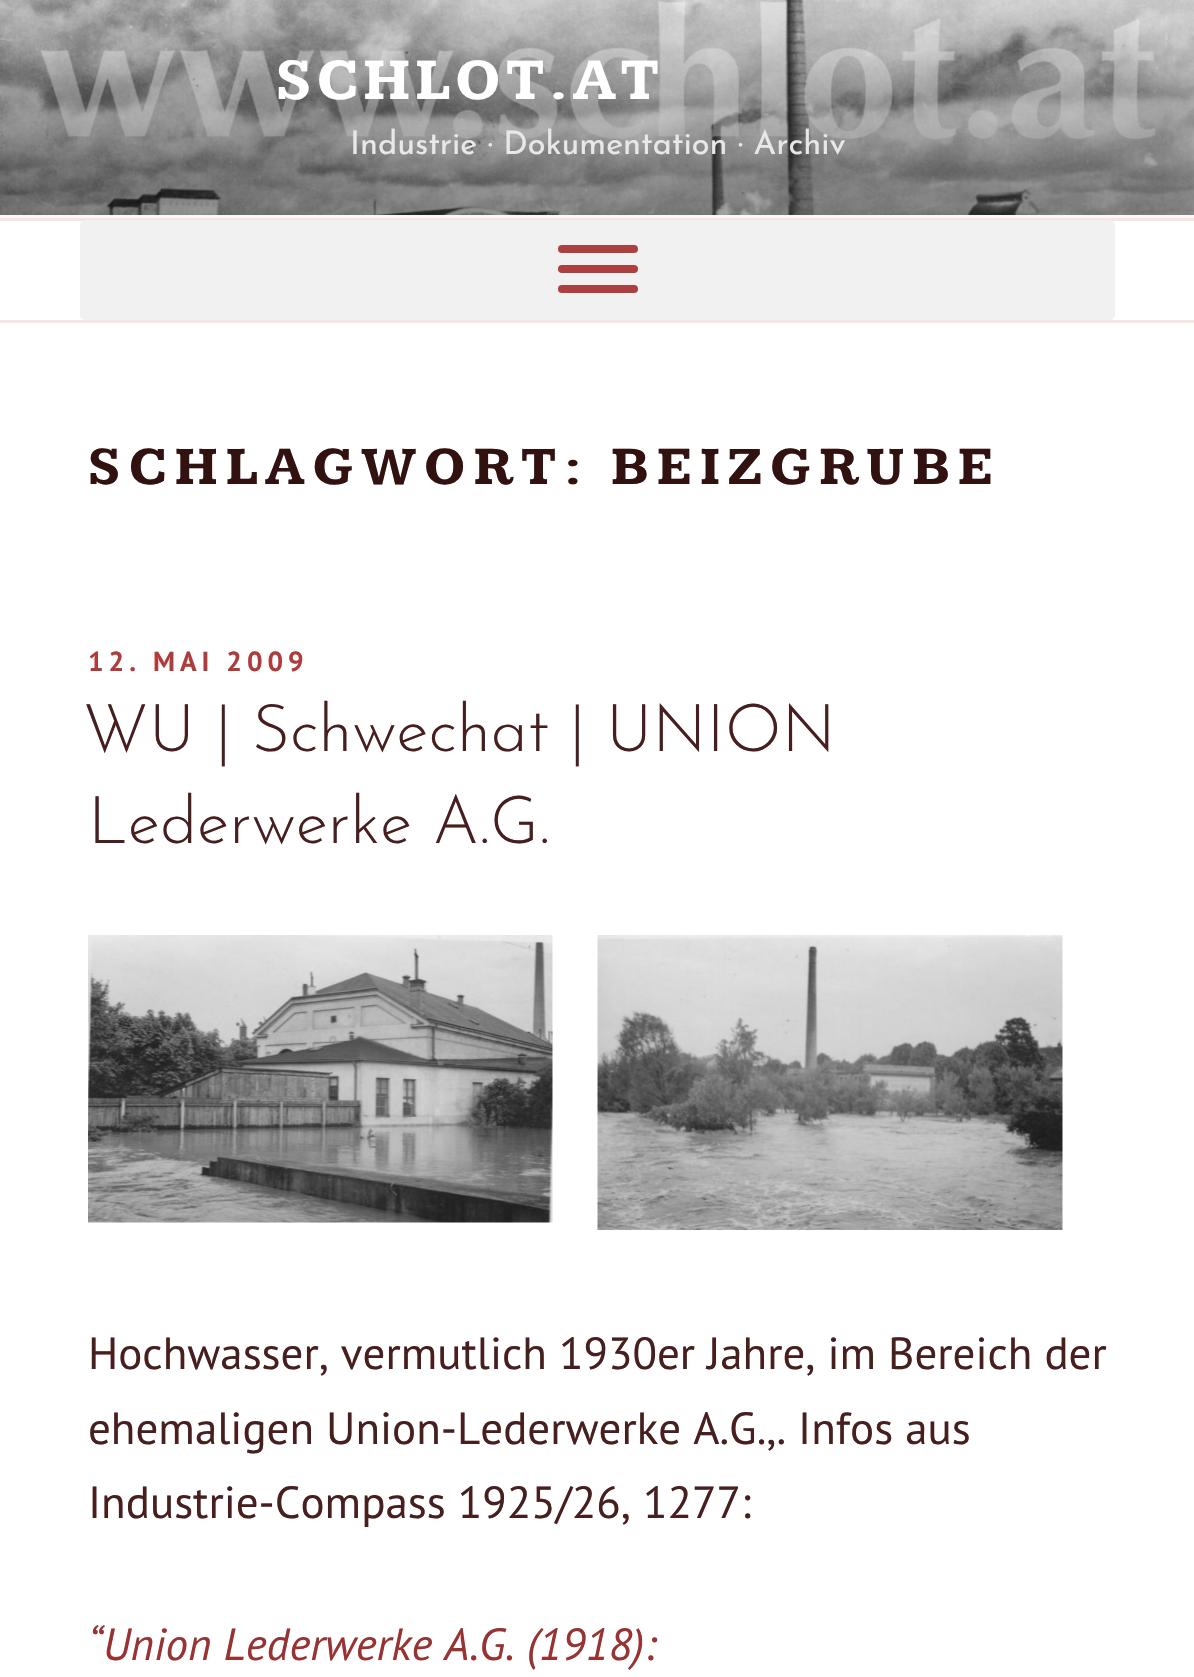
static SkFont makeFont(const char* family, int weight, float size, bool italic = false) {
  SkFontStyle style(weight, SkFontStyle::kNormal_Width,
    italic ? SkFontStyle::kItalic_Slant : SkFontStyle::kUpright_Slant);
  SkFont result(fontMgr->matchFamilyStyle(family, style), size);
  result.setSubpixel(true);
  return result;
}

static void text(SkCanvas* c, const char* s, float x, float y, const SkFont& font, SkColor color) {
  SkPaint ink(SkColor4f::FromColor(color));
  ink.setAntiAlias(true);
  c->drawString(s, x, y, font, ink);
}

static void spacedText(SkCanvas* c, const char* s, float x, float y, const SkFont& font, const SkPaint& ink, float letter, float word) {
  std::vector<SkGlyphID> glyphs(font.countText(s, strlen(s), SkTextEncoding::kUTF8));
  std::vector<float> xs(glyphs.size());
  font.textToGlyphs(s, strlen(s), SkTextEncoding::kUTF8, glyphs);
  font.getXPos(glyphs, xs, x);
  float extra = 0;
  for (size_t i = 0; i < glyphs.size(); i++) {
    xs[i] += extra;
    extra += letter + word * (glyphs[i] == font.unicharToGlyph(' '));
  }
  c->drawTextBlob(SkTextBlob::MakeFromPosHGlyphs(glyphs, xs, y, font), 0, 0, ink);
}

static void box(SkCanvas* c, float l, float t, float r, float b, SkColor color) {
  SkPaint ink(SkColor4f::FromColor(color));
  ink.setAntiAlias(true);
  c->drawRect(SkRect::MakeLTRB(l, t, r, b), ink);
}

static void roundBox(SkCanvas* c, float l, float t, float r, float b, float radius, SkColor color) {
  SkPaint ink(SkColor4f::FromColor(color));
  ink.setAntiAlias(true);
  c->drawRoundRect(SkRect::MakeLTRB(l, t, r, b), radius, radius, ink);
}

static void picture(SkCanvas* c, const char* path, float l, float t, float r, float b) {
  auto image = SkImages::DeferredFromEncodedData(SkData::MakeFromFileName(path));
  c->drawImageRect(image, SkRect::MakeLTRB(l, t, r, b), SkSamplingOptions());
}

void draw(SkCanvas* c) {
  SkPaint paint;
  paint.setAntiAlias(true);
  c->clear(0xffffffff);
  box(c, 0, 215, 1194, 218, 0xfffcf7f7);
  picture(c, "img_01.png", 0, 0, 1194, 215);
  SkFont face1 = makeFont("Kameron", 700, 60);
  paint.setColor(0xffffffff);
  spacedText(c, "SCHLOT.AT", 276, 99, face1, paint, 4.75f, 0);
  SkFont face2 = makeFont("Josefin Sans", 400, 32.5f);
  text(c, "Industrie · Dokumentation · Archiv", 350, 154, face2, 0xffe8e8e8);
  box(c, 0, 218, 1194, 221, 0xfff6e4e4);
  box(c, 0, 320, 1194, 323, 0xfff6e4e4);
  roundBox(c, 80, 220, 1115, 320, 5, 0xfff1f1f1);
  roundBox(c, 558, 245, 638, 253, 4, 0xffac3f3f);
  roundBox(c, 558, 265, 638, 273, 4, 0xffac3f3f);
  roundBox(c, 558, 285, 638, 293, 4, 0xffac3f3f);
  SkFont face3 = makeFont("Kameron", 700, 55);
  paint.setColor(0xff321111);
  spacedText(c, "SCHLAGWORT: BEIZGRUBE", 88, 484, face3, paint, 7.7f, 0);
  SkFont face4 = makeFont("PT Sans", 700, 27.5f);
  paint.setColor(0xffb03b3b);
  spacedText(c, "12. MAI 2009", 88, 671, face4, paint, 5, 0);
  SkFont face5 = makeFont("Josefin Sans", 300, 66);
  text(c, "WU | Schwechat | UNION", 83, 751, face5, 0xff471f1f);
  text(c, "Lederwerke A.G.", 88, 843, face5, 0xff471f1f);
  picture(c, "img_02.png", 88, 935, 553, 1223);
  picture(c, "img_03.png", 597, 935, 1063, 1230);
  SkFont face6 = makeFont("PT Sans", 400, 45);
  text(c, "Hochwasser, vermutlich 1930er Jahre, im Bereich der", 88, 1369, face6, 0xff471f1f);
  text(c, "ehemaligen Union-Lederwerke A.G.,. Infos aus", 88, 1444, face6, 0xff471f1f);
  text(c, "Industrie-Compass 1925/26, 1277:", 88, 1518, face6, 0xff471f1f);
  SkFont face7 = makeFont("PT Sans", 400, 45, true);
  text(c, "“Union Lederwerke A.G. (1918):", 88, 1660, face7, 0xff993333);
}
